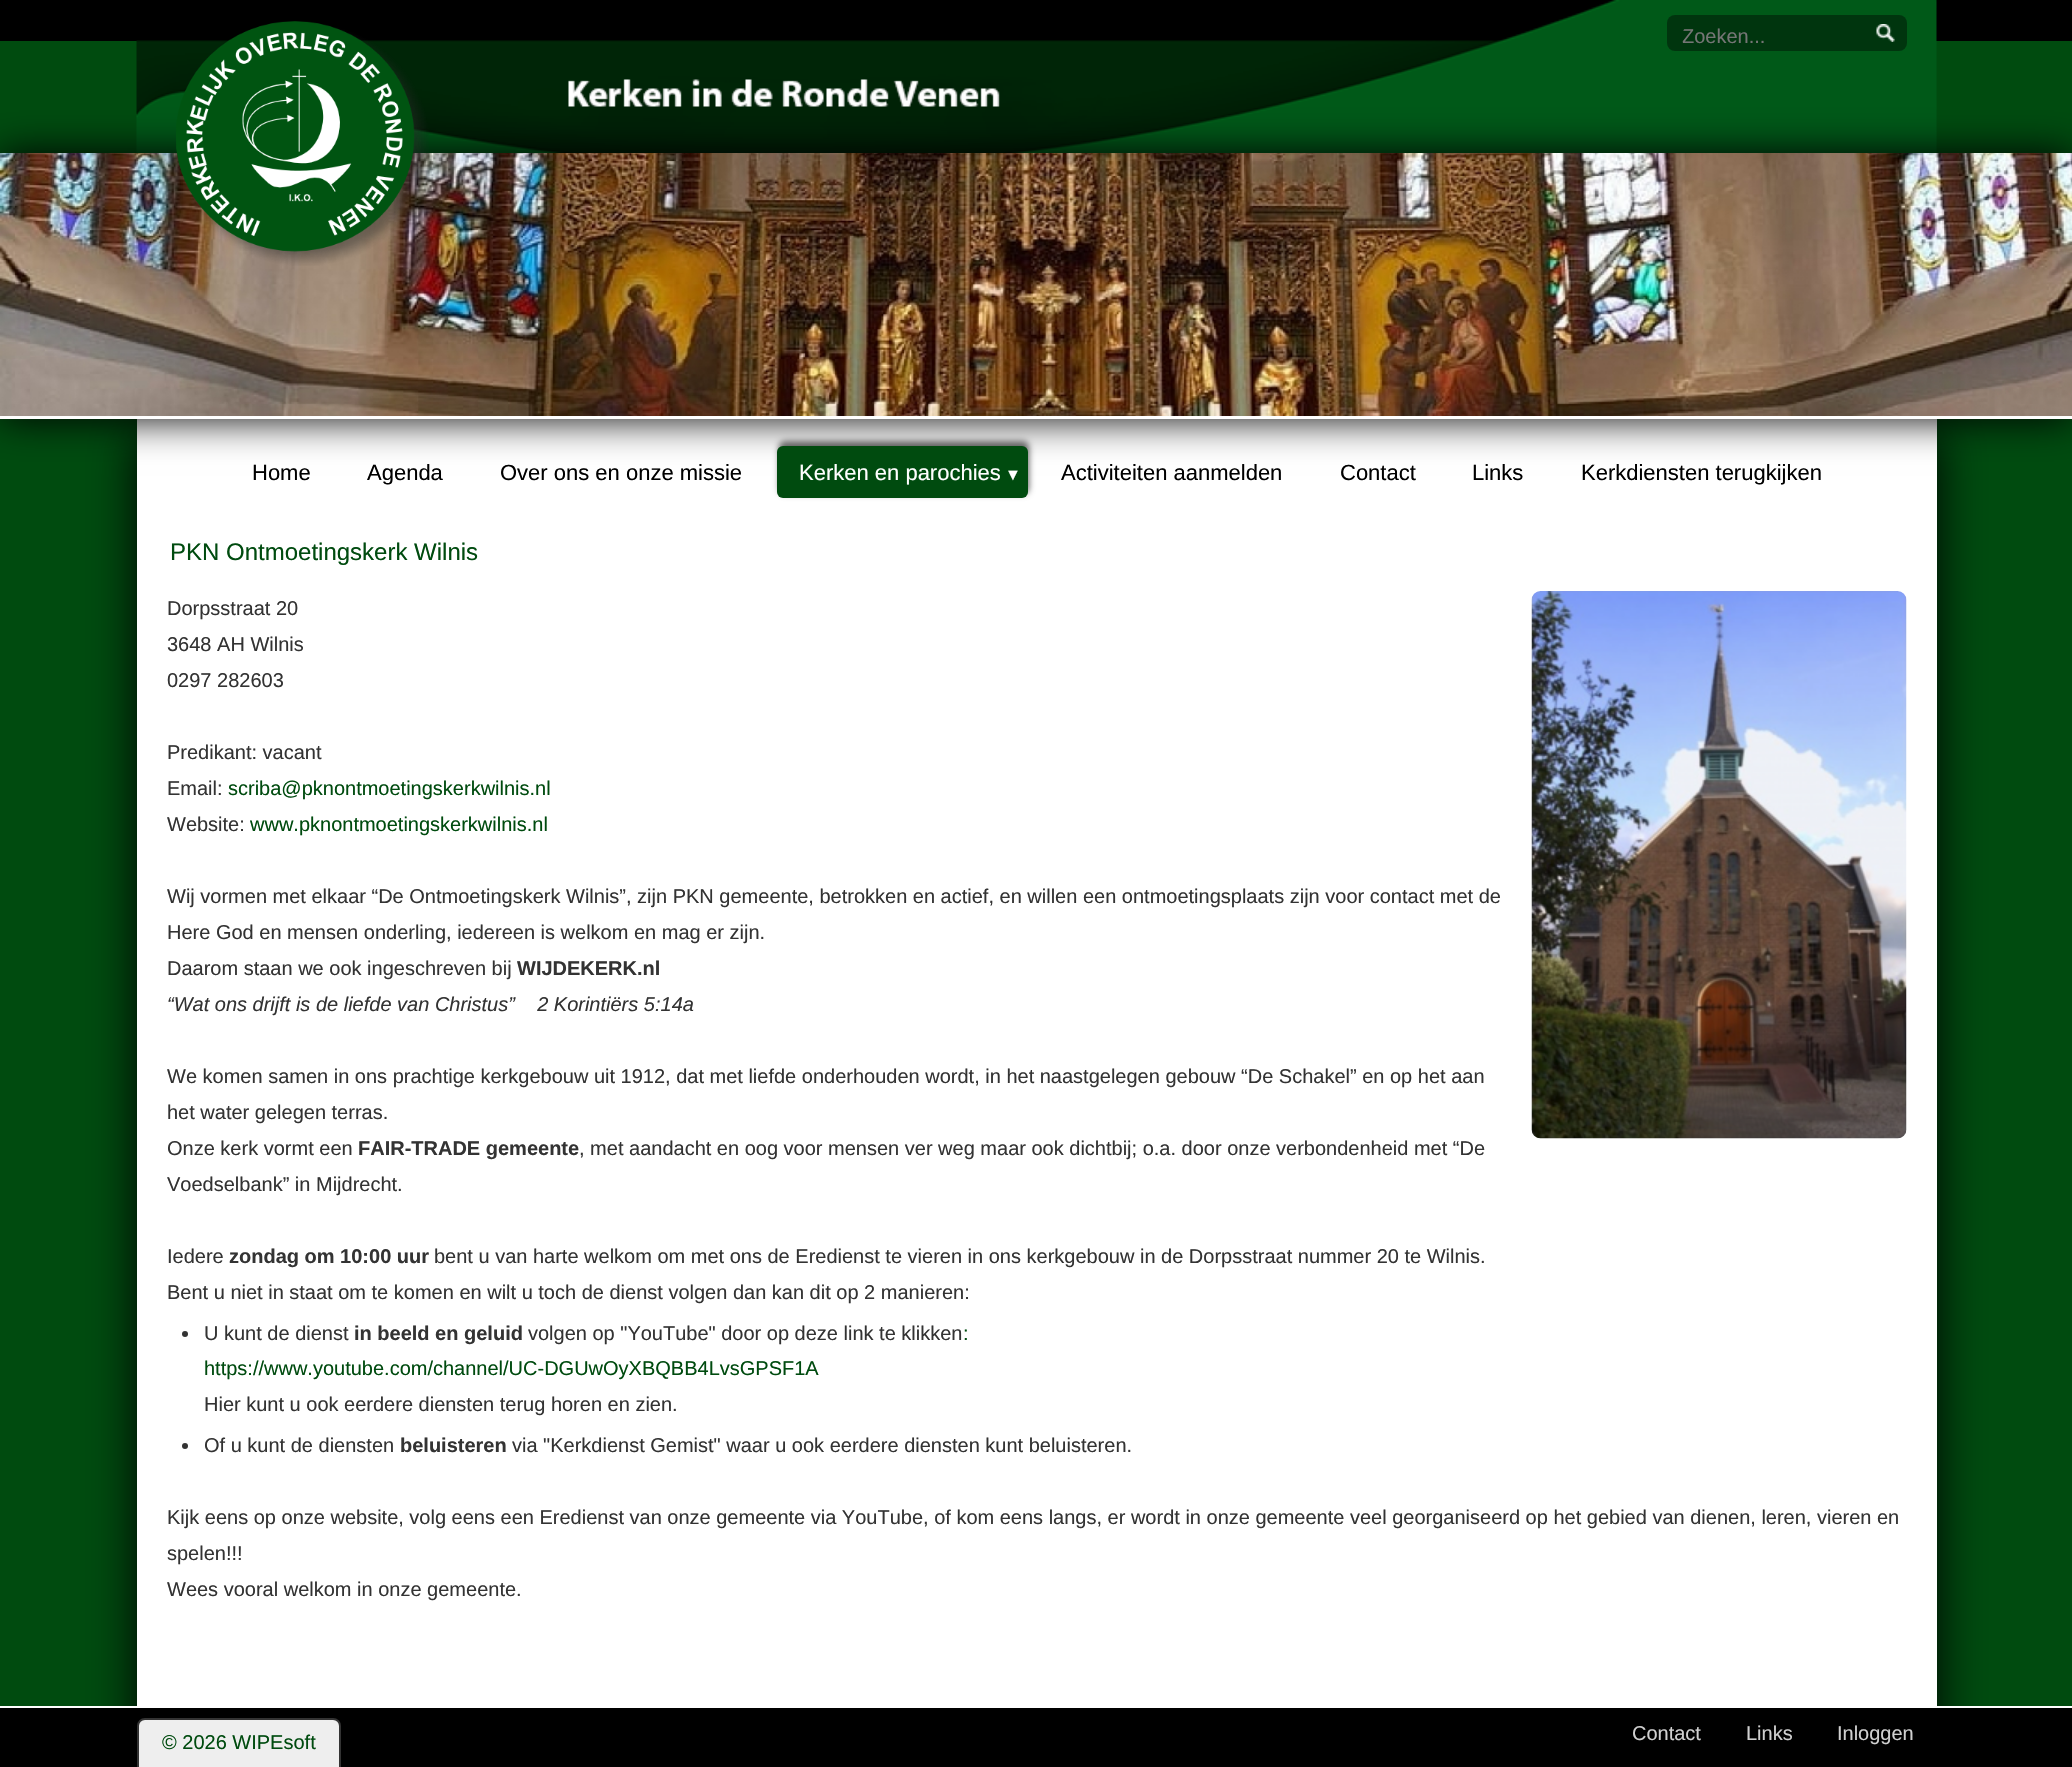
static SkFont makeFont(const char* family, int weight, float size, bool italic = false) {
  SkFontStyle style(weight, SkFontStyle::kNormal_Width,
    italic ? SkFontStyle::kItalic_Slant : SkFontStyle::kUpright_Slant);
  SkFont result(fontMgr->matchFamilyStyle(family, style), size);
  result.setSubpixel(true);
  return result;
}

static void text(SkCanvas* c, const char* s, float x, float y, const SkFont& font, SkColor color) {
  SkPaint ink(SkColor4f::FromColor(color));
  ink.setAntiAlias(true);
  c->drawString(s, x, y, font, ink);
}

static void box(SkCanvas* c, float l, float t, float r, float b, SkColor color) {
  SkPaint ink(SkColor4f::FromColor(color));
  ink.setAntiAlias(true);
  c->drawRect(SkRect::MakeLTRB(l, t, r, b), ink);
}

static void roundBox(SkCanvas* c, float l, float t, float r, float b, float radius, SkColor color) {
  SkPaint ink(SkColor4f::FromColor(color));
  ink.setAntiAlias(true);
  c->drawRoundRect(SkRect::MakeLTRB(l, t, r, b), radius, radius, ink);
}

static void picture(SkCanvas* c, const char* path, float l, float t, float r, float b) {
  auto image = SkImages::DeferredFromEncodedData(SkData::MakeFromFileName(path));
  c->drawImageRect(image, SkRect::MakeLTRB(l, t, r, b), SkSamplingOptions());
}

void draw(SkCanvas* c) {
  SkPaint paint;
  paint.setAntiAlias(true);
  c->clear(0xff004b0f);
  box(c, 0, 0, 2072, 41, 0xff000000);
  picture(c, "img_01.png", 136, 0, 1937, 153);
  paint.setColor(0xff000000);
  paint.setMaskFilter(SkMaskFilter::MakeBlur(kNormal_SkBlurStyle, 23));
  c->drawRect(SkRect::MakeLTRB(137, 431, 1937, 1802), paint);
  paint.setMaskFilter(nullptr);
  box(c, 137, 419, 1937, 1706, 0xffffffff);
  paint.setMaskFilter(SkMaskFilter::MakeBlur(kNormal_SkBlurStyle, 19));
  c->drawRect(SkRect::MakeLTRB(0, 153, 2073, 419), paint);
  paint.setMaskFilter(nullptr);
  picture(c, "img_05.png", 0, 153, 2072, 416);
  picture(c, "img_02.png", 176, 21, 429, 266);
  roundBox(c, 1667, 15, 1907, 51, 8, 0xff00350e);
  picture(c, "img_03.png", 1876, 24, 1895, 42);
  c->save();
  c->clipPath(SkPathBuilder().moveTo(1691, 26).lineTo(1842, 26).cubicTo(1847, 26, 1851, 30, 1851, 35).lineTo(1851, 39).cubicTo(1851, 44, 1847, 48, 1842, 48).lineTo(1691, 48).cubicTo(1686, 48, 1682, 44, 1682, 39).lineTo(1682, 35).cubicTo(1682, 30, 1686, 26, 1691, 26).close().detach(), true);
  SkFont face1 = makeFont("Liberation Sans", 400, 20);
  text(c, "Zoeken...", 1682, 43, face1, 0xff757575);
  c->restore();
  SkFont face2 = makeFont("Liberation Sans", 400, 22);
  text(c, "Home", 252, 480, face2, 0xff000000);
  text(c, "Agenda", 367, 480, face2, 0xff000000);
  text(c, "Over ons en onze missie", 500, 480, face2, 0xff000000);
  paint.setColor(0xff666666);
  paint.setMaskFilter(SkMaskFilter::MakeBlur(kNormal_SkBlurStyle, 3));
  c->drawRoundRect(SkRect::MakeLTRB(779, 441, 1029, 494), 6, 6, paint);
  paint.setMaskFilter(nullptr);
  roundBox(c, 777, 446, 1028, 498, 6, 0xff004b0f);
  text(c, "Kerken en parochies", 799, 480, face2, 0xffffffff);
  SkFont face3 = makeFont("Liberation Sans", 400, 16);
  text(c, "▼", 1005, 480, face3, 0xffffffff);
  text(c, "Activiteiten aanmelden", 1061, 480, face2, 0xff000000);
  text(c, "Contact", 1340, 480, face2, 0xff000000);
  text(c, "Links", 1472, 480, face2, 0xff000000);
  text(c, "Kerkdiensten terugkijken", 1581, 480, face2, 0xff000000);
  SkFont face4 = makeFont("Liberation Sans", 400, 24);
  text(c, "PKN Ontmoetingskerk Wilnis", 170, 560, face4, 0xff004b0f);
  text(c, "Dorpsstraat 20", 167, 615, face1, 0xff333333);
  picture(c, "img_04.png", 1531, 591, 1907, 1139);
  text(c, "3648 AH Wilnis", 167, 651, face1, 0xff333333);
  text(c, "0297 282603", 167, 687, face1, 0xff333333);
  text(c, "Predikant: vacant", 167, 759, face1, 0xff333333);
  text(c, "Email:", 167, 795, face1, 0xff333333);
  text(c, "scriba@pknontmoetingskerkwilnis.nl", 228, 795, face1, 0xff004b0f);
  text(c, "Website:", 167, 831, face1, 0xff333333);
  text(c, "www.pknontmoetingskerkwilnis.nl", 250, 831, face1, 0xff004b0f);
  text(c, "Wij vormen met elkaar “De Ontmoetingskerk Wilnis”, zijn PKN gemeente, betrokken en actief, en willen een ontmoetingsplaats zijn voor contact met de", 167, 903, face1, 0xff333333);
  text(c, "Here God en mensen onderling, iedereen is welkom en mag er zijn.", 167, 939, face1, 0xff333333);
  text(c, "Daarom staan we ook ingeschreven bij", 167, 975, face1, 0xff333333);
  SkFont face5 = makeFont("Liberation Sans", 700, 20);
  text(c, "WIJDEKERK.nl", 517, 975, face5, 0xff333333);
  SkFont face6 = makeFont("Liberation Sans", 400, 20, true);
  text(c, "“Wat ons drijft is de liefde van Christus”    2 Korintiërs 5:14a", 167, 1011, face6, 0xff333333);
  text(c, "We komen samen in ons prachtige kerkgebouw uit 1912, dat met liefde onderhouden wordt, in het naastgelegen gebouw “De Schakel” en op het aan", 167, 1083, face1, 0xff333333);
  text(c, "het water gelegen terras.", 167, 1119, face1, 0xff333333);
  text(c, "Onze kerk vormt een", 167, 1155, face1, 0xff333333);
  text(c, "FAIR-TRADE gemeente", 358, 1155, face5, 0xff333333);
  text(c, ", met aandacht en oog voor mensen ver weg maar ook dichtbij; o.a. door onze verbondenheid met “De", 579, 1155, face1, 0xff333333);
  text(c, "Voedselbank” in Mijdrecht.", 167, 1191, face1, 0xff333333);
  text(c, "Iedere", 167, 1263, face1, 0xff333333);
  text(c, "zondag om 10:00 uur", 229, 1263, face5, 0xff333333);
  text(c, "bent u van harte welkom om met ons de Eredienst te vieren in ons kerkgebouw in de Dorpsstraat nummer 20 te Wilnis.", 434, 1263, face1, 0xff333333);
  text(c, "Bent u niet in staat om te komen en wilt u toch de dienst volgen dan kan dit op 2 manieren:", 167, 1299, face1, 0xff333333);
  paint.setColor(0xff333333);
  c->drawCircle(185, 1334, 3, paint);
  text(c, "U kunt de dienst", 204, 1340, face1, 0xff333333);
  text(c, "in beeld en geluid", 354, 1340, face5, 0xff333333);
  text(c, "volgen op \"YouTube\" door op deze link te klikken", 528, 1340, face1, 0xff333333);
  text(c, ":", 963, 1340, face1, 0xff004b0f);
  text(c, "https://www.youtube.com/channel/UC-DGUwOyXBQBB4LvsGPSF1A", 204, 1375, face1, 0xff004b0f);
  text(c, "Hier kunt u ook eerdere diensten terug horen en zien.", 204, 1411, face1, 0xff333333);
  c->drawCircle(185, 1446, 3, paint);
  text(c, "Of u kunt de diensten", 204, 1452, face1, 0xff333333);
  text(c, "beluisteren", 400, 1452, face5, 0xff333333);
  text(c, "via \"Kerkdienst Gemist\" waar u ook eerdere diensten kunt beluisteren.", 512, 1452, face1, 0xff333333);
  text(c, "Kijk eens op onze website, volg eens een Eredienst van onze gemeente via YouTube, of kom eens langs, er wordt in onze gemeente veel georganiseerd op het gebied van dienen, leren, vieren en", 167, 1524, face1, 0xff333333);
  text(c, "spelen!!!", 167, 1560, face1, 0xff333333);
  text(c, "Wees vooral welkom in onze gemeente.", 167, 1596, face1, 0xff333333);
  box(c, 0, 416, 2072, 419, 0xffffffff);
  box(c, 0, 1708, 2072, 1767, 0xff000000);
  box(c, 0, 1706, 2072, 1708, 0xffffffff);
  paint.setColor(0xffeeeeee);
  c->drawPath(SkPathBuilder().moveTo(145, 1719).lineTo(333, 1719).cubicTo(337, 1719, 340, 1722, 340, 1726).lineTo(340, 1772).lineTo(138, 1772).lineTo(138, 1726).cubicTo(138, 1722, 141, 1719, 145, 1719).close().detach(), paint);
  paint.setStyle(SkPaint::kStroke_Style);
  paint.setStrokeWidth(2);
  paint.setColor(0xff333333);
  c->drawPath(SkPathBuilder().moveTo(145, 1719).lineTo(333, 1719).cubicTo(337, 1719, 340, 1722, 340, 1726).lineTo(340, 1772).lineTo(138, 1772).lineTo(138, 1726).cubicTo(138, 1722, 141, 1719, 145, 1719).close().detach(), paint);
  text(c, "© 2026 WIPEsoft", 162, 1749, face1, 0xff004b0f);
  text(c, "Contact", 1632, 1740, face1, 0xffd0d0d0);
  text(c, "Links", 1746, 1740, face1, 0xffd0d0d0);
  text(c, "Inloggen", 1837, 1740, face1, 0xffd0d0d0);
}
